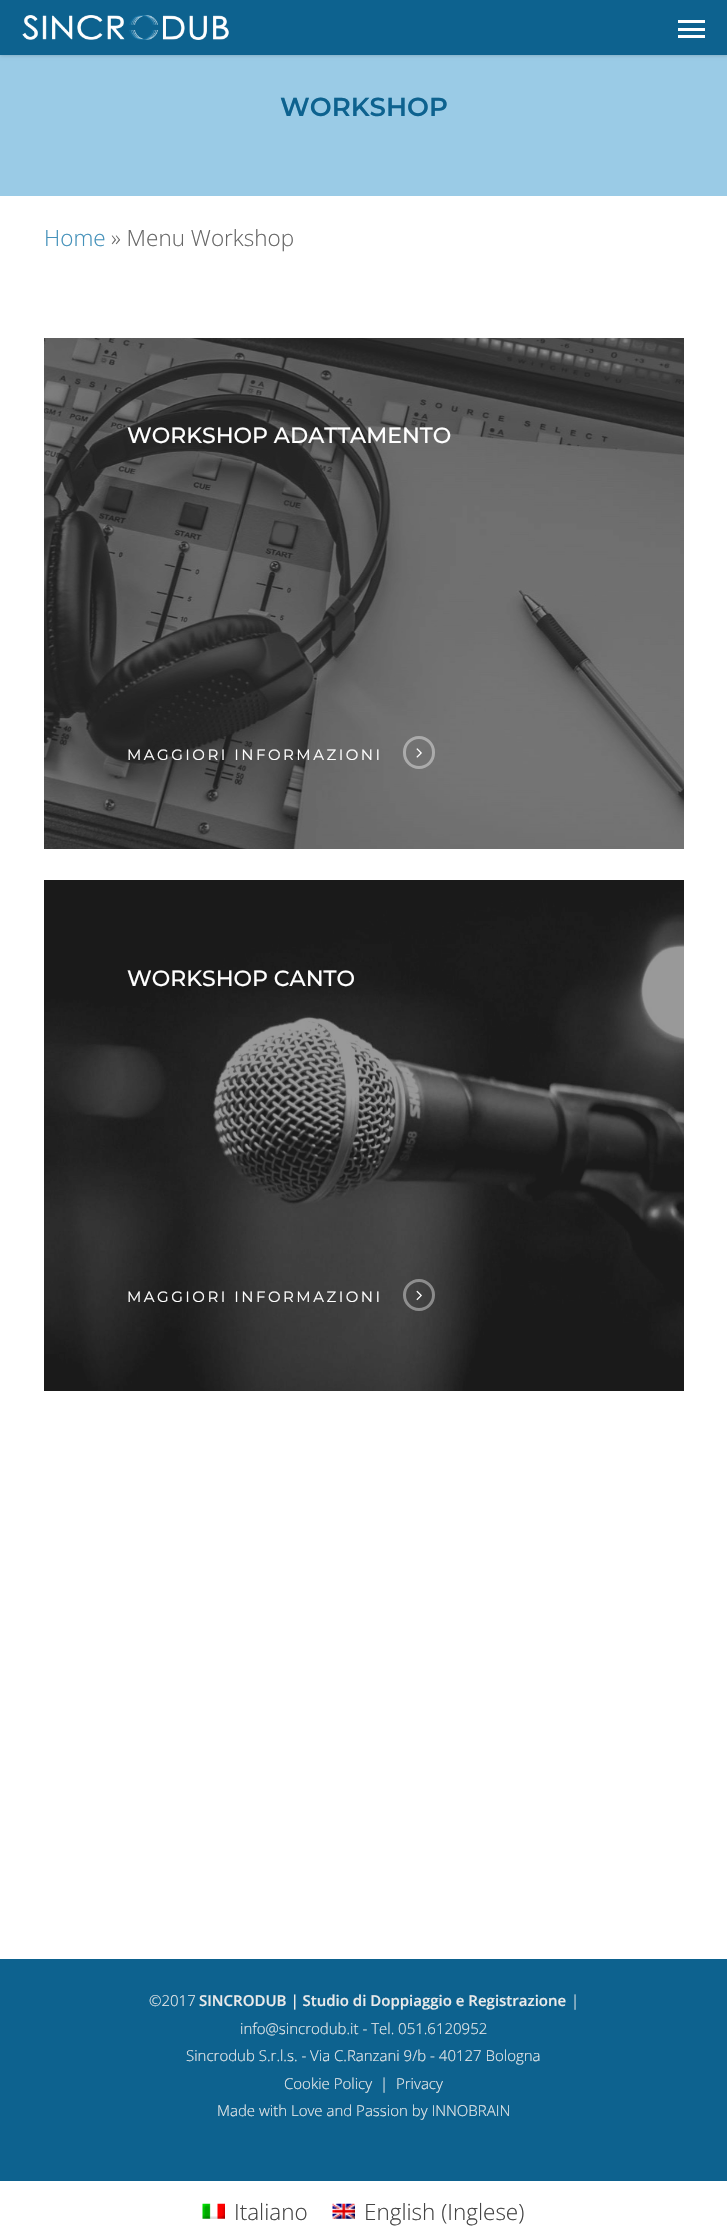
static SkFont makeFont(const char* family, int weight, float size, bool italic = false) {
  SkFontStyle style(weight, SkFontStyle::kNormal_Width,
    italic ? SkFontStyle::kItalic_Slant : SkFontStyle::kUpright_Slant);
  SkFont result(fontMgr->matchFamilyStyle(family, style), size);
  result.setSubpixel(true);
  return result;
}

static void text(SkCanvas* c, const char* s, float x, float y, const SkFont& font, SkColor color) {
  SkPaint ink(SkColor4f::FromColor(color));
  ink.setAntiAlias(true);
  c->drawString(s, x, y, font, ink);
}

static void spacedText(SkCanvas* c, const char* s, float x, float y, const SkFont& font, const SkPaint& ink, float letter, float word) {
  std::vector<SkGlyphID> glyphs(font.countText(s, strlen(s), SkTextEncoding::kUTF8));
  std::vector<float> xs(glyphs.size());
  font.textToGlyphs(s, strlen(s), SkTextEncoding::kUTF8, glyphs);
  font.getXPos(glyphs, xs, x);
  float extra = 0;
  for (size_t i = 0; i < glyphs.size(); i++) {
    xs[i] += extra;
    extra += letter + word * (glyphs[i] == font.unicharToGlyph(' '));
  }
  c->drawTextBlob(SkTextBlob::MakeFromPosHGlyphs(glyphs, xs, y, font), 0, 0, ink);
}

static void box(SkCanvas* c, float l, float t, float r, float b, SkColor color) {
  SkPaint ink(SkColor4f::FromColor(color));
  ink.setAntiAlias(true);
  c->drawRect(SkRect::MakeLTRB(l, t, r, b), ink);
}

static void picture(SkCanvas* c, const char* path, float l, float t, float r, float b) {
  auto image = SkImages::DeferredFromEncodedData(SkData::MakeFromFileName(path));
  c->drawImageRect(image, SkRect::MakeLTRB(l, t, r, b), SkSamplingOptions());
}

void draw(SkCanvas* c) {
  SkPaint paint;
  paint.setAntiAlias(true);
  c->clear(0xffffffff);
  box(c, 0, 55, 727, 196, 0xff9acbe6);
  paint.setColor(0x38000000);
  paint.setMaskFilter(SkMaskFilter::MakeBlur(kNormal_SkBlurStyle, 2));
  c->drawRect(SkRect::MakeLTRB(0, 0, 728, 55), paint);
  paint.setMaskFilter(nullptr);
  box(c, 0, 0, 727, 55, 0xff0d628f);
  picture(c, "img_01.png", 22, 15, 229, 40);
  box(c, 678, 20, 705, 23, 0xffffffff);
  box(c, 678, 35, 705, 38, 0xffffffff);
  box(c, 678, 28, 705, 31, 0xffffffff);
  SkFont face1 = makeFont("Montserrat", 600, 26);
  text(c, "WORKSHOP", 280, 116, face1, 0xff0d628f);
  SkFont face2 = makeFont("Open Sans", 300, 22.5f);
  text(c, "Home", 44, 246, face2, 0xff4491ba);
  text(c, "» Menu Workshop", 111, 246, face2, 0xff676767);
  picture(c, "img_02.png", 44, 338, 684, 849);
  SkFont face3 = makeFont("Montserrat", 500, 22);
  text(c, "WORKSHOP ADATTAMENTO", 127, 443, face3, 0xffffffff);
  SkFont face4 = makeFont("Montserrat", 400, 15);
  paint.setColor(0xffffffff);
  spacedText(c, "MAGGIORI INFORMAZIONI", 127, 760, face4, paint, 2.5f, 0);
  paint.setStyle(SkPaint::kStroke_Style);
  paint.setStrokeWidth(3);
  paint.setColor(0xffababab);
  c->drawRoundRect(SkRect::MakeLTRB(404.5f, 737.5f, 433.5f, 767.5f), 14.5f, 14.5f, paint);
  picture(c, "img_03.png", 416, 748, 422, 758);
  picture(c, "img_04.png", 44, 880, 684, 1391);
  text(c, "WORKSHOP CANTO", 127, 986, face3, 0xffffffff);
  paint.setStyle(SkPaint::kFill_Style);
  paint.setColor(0xffffffff);
  spacedText(c, "MAGGIORI INFORMAZIONI", 127, 1302, face4, paint, 2.5f, 0);
  paint.setStyle(SkPaint::kStroke_Style);
  paint.setColor(0x66ffffff);
  c->drawCircle(419, 1295, 14.5f, paint);
  picture(c, "img_05.png", 416, 1290, 422, 1301);
  box(c, 0, 1959, 727, 2181, 0xff0d628f);
  SkFont face5 = makeFont("Open Sans", 300, 15);
  text(c, "©2017", 149, 2006, face5, 0xffeaeaea);
  SkFont face6 = makeFont("Open Sans", 600, 15);
  text(c, "SINCRODUB | Studio di Doppiaggio e Registrazione", 199, 2006, face6, 0xffeaeaea);
  text(c, "|", 571, 2006, face5, 0xffeaeaea);
  text(c, "info@sincrodub.it - Tel. 051.6120952", 240, 2034, face5, 0xffeaeaea);
  text(c, "Sincrodub S.r.l.s. - Via C.Ranzani 9/b - 40127 Bologna", 186, 2061, face5, 0xffeaeaea);
  text(c, "Cookie Policy", 284, 2089, face5, 0xffeaeaea);
  text(c, "|", 380, 2089, face5, 0xffeaeaea);
  text(c, "Privacy", 396, 2089, face5, 0xffeaeaea);
  text(c, "Made with Love and Passion by INNOBRAIN", 217, 2116, face5, 0xffeaeaea);
  picture(c, "img_06.png", 202, 2203, 225, 2219);
  text(c, "Italiano", 234, 2220, face2, 0xff444444);
  picture(c, "img_07.png", 332, 2203, 355, 2219);
  text(c, "English (Inglese)", 364, 2220, face2, 0xff444444);
}
